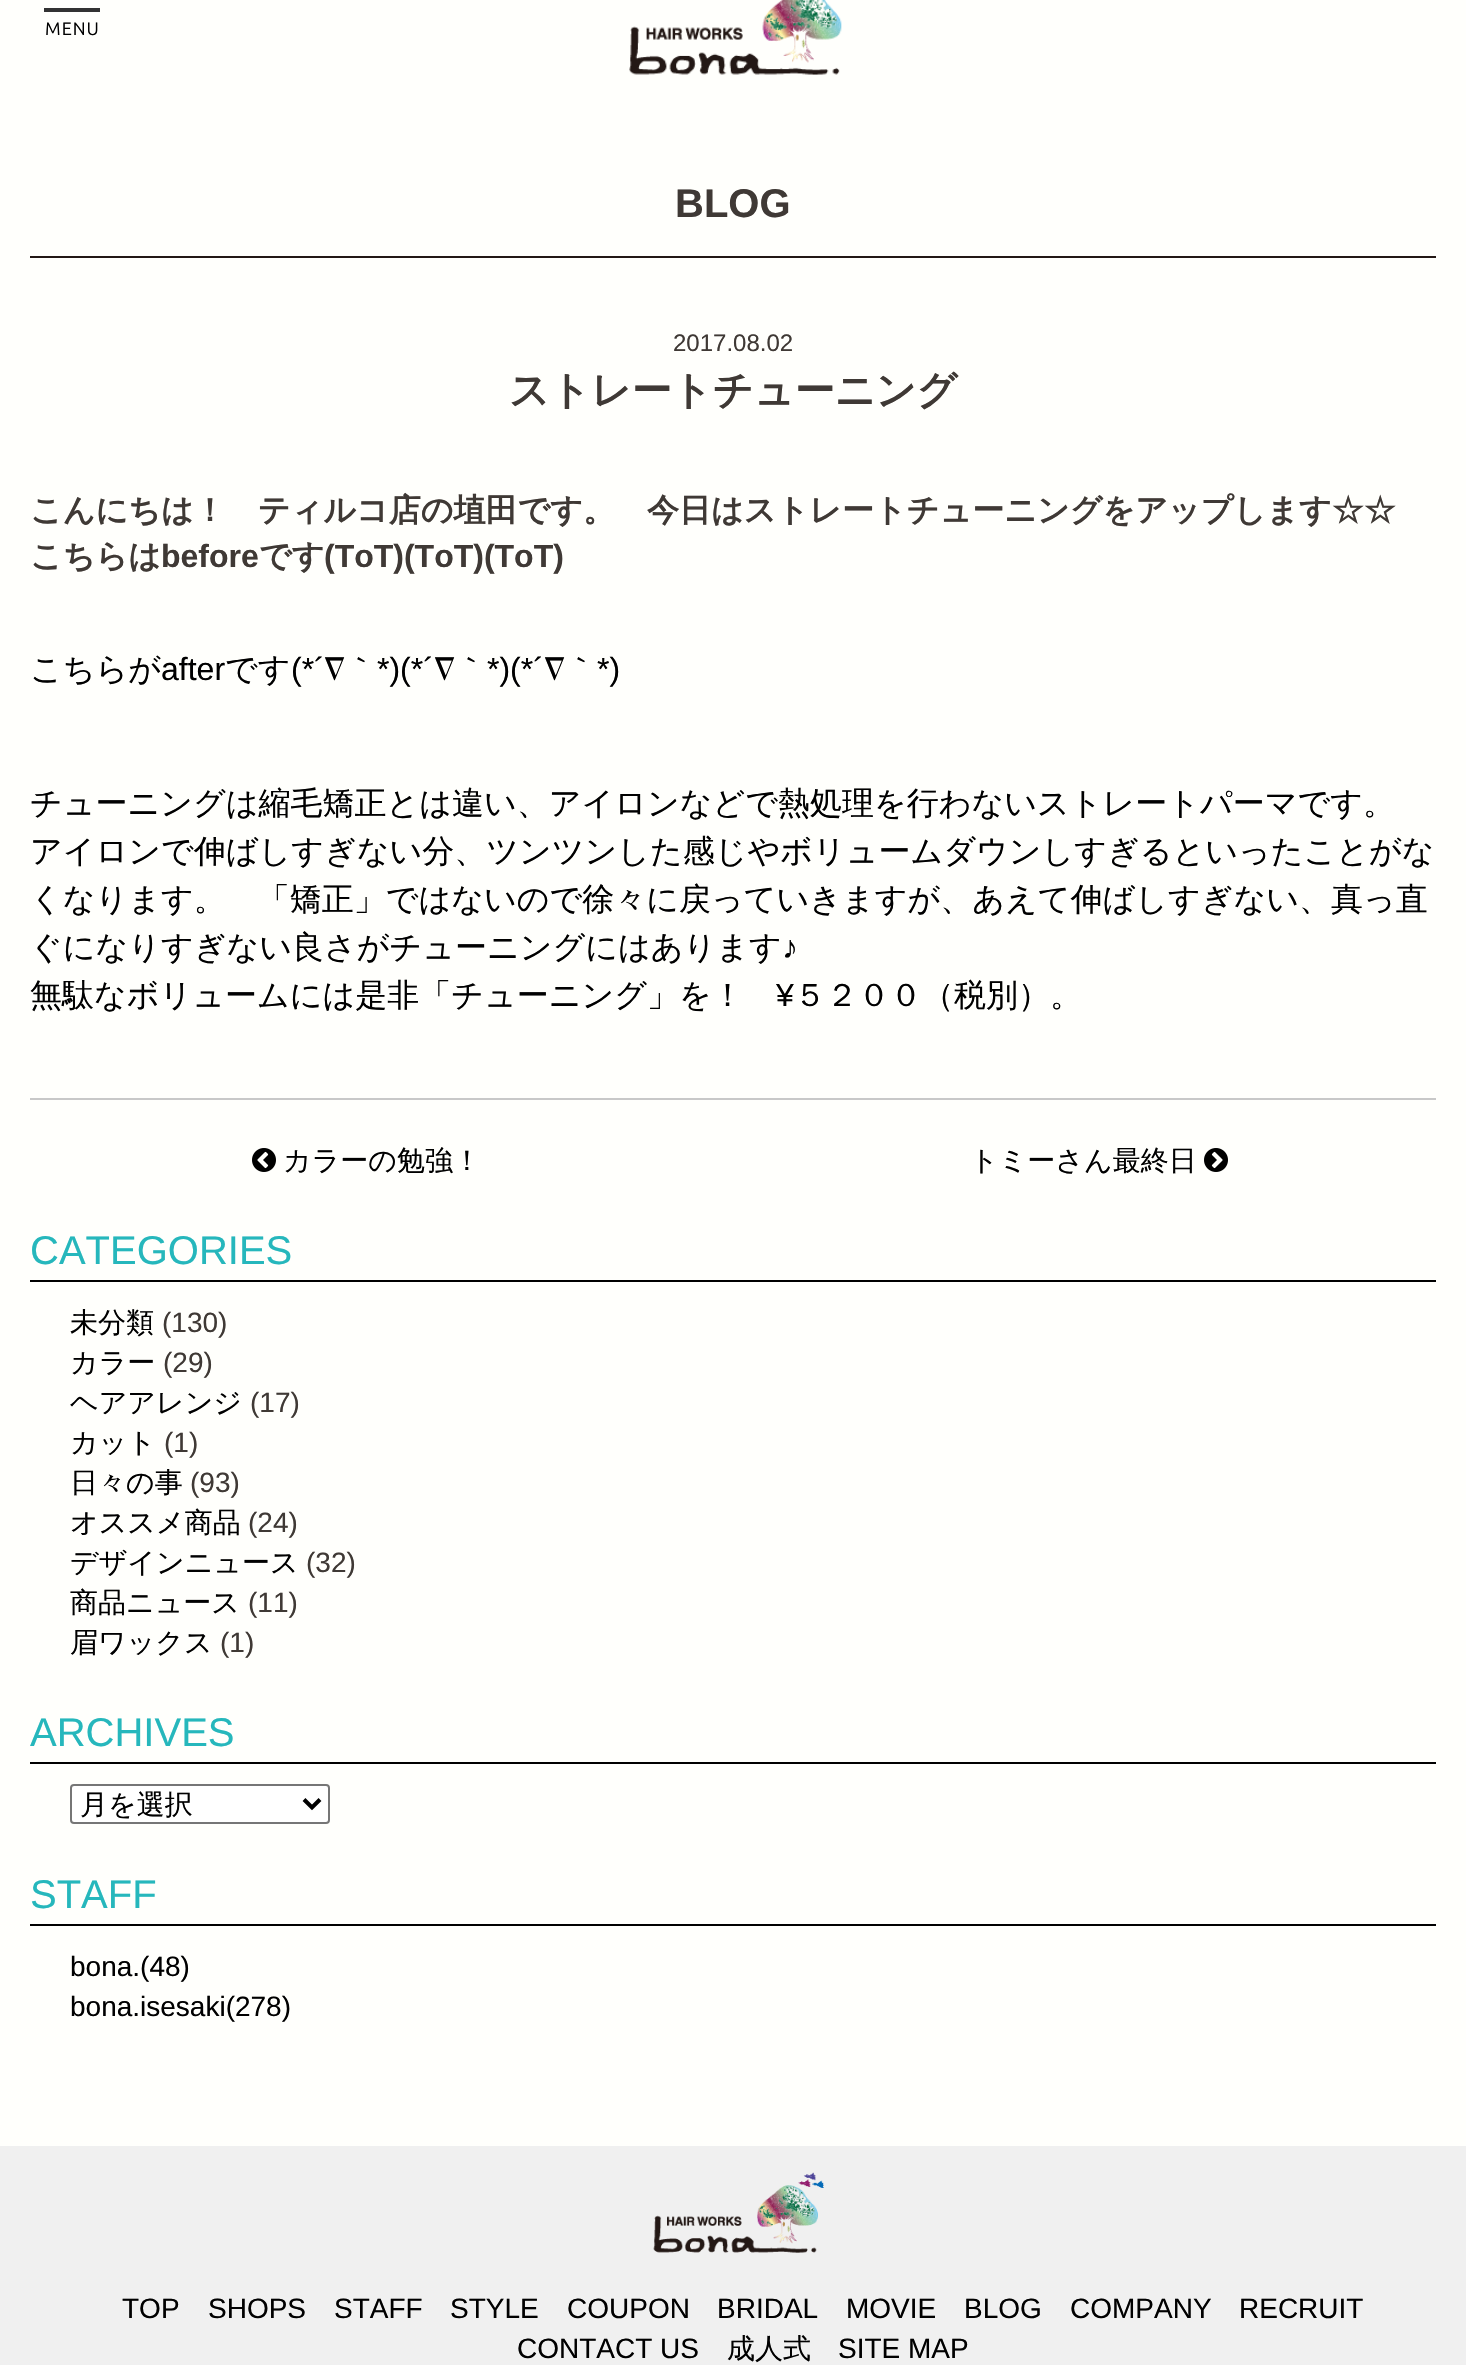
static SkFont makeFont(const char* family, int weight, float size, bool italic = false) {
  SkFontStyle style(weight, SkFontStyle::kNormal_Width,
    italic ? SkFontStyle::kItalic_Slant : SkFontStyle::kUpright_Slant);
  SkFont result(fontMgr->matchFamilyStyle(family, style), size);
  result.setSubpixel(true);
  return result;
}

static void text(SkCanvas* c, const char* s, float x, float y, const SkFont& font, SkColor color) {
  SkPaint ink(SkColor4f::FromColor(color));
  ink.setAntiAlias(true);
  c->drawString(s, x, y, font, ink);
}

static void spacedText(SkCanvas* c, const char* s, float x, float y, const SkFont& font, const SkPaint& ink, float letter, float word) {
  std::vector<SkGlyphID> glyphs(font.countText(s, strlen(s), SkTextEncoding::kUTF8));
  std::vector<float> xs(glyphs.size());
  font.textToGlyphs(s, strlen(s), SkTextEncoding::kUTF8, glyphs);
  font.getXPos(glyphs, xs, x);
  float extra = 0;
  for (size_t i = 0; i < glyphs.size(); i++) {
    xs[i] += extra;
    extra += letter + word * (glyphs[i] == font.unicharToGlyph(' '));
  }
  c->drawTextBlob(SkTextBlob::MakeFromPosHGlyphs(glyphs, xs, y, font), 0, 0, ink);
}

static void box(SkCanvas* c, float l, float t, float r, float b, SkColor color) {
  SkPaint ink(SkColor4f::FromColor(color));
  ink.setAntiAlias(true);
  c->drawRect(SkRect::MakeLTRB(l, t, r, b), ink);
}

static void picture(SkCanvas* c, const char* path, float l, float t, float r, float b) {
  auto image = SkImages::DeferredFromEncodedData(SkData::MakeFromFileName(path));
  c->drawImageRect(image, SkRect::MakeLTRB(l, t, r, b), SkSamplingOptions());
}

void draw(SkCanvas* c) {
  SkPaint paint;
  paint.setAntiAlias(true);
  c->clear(0xfffffffc);
  box(c, 44, 8, 100, 12, 0xff333333);
  SkFont face1 = makeFont("Ubuntu", 400, 18);
  paint.setColor(0xff000000);
  spacedText(c, "MENU", 45, 35, face1, paint, 1, 0);
  picture(c, "img_01.png", 629, 0, 842, 75);
  box(c, 30, 256, 1436, 258, 0xff231815);
  SkFont face2 = makeFont("Liberation Sans", 700, 40);
  text(c, "BLOG", 675, 217, face2, 0xff3f3935);
  SkFont face3 = makeFont("Liberation Sans", 400, 24);
  text(c, "2017.08.02", 673, 351, face3, 0xff3f3935);
  SkFont face4 = makeFont("WenQuanYi Zen Hei", 700, 40);
  text(c, "ストレートチューニング", 509, 404, face4, 0xff3f3935);
  SkFont face5 = makeFont("WenQuanYi Zen Hei", 700, 32);
  text(c, "こんにちは！　ティルコ店の埴田です。　今日はストレートチューニングをアップします☆☆", 30, 521, face5, 0xff3f3935);
  text(c, "こちらは", 30, 567, face5, 0xff3f3935);
  SkFont face6 = makeFont("Liberation Sans", 700, 32);
  text(c, "before", 161, 567, face6, 0xff3f3935);
  text(c, "です", 259, 567, face5, 0xff3f3935);
  text(c, "(ToT)(ToT)(ToT)", 324, 567, face6, 0xff3f3935);
  SkFont face7 = makeFont("WenQuanYi Zen Hei", 500, 32);
  text(c, "こちらが", 30, 680, face7, 0xff000000);
  SkFont face8 = makeFont("Liberation Sans", 400, 32);
  text(c, "after", 161, 680, face8, 0xff000000);
  text(c, "です", 225, 680, face7, 0xff000000);
  text(c, "(*´", 291, 680, face8, 0xff000000);
  text(c, "∇｀", 324, 680, face7, 0xff000000);
  text(c, "*)(*´", 377, 680, face8, 0xff000000);
  text(c, "∇｀", 434, 680, face7, 0xff000000);
  text(c, "*)(*´", 487, 680, face8, 0xff000000);
  text(c, "∇｀", 544, 680, face7, 0xff000000);
  text(c, "*)", 597, 680, face8, 0xff000000);
  text(c, "チューニングは縮毛矯正とは違い、アイロンなどで熱処理を行わないストレートパーマです。", 30, 814, face7, 0xff000000);
  text(c, "アイロンで伸ばしすぎない分、ツンツンした感じやボリュームダウンしすぎるといったことがな", 30, 862, face7, 0xff000000);
  text(c, "くなります。　「矯正」ではないので徐々に戻っていきますが、あえて伸ばしすぎない、真っ直", 30, 910, face7, 0xff000000);
  text(c, "ぐになりすぎない良さがチューニングにはあります", 30, 958, face7, 0xff000000);
  text(c, "♪", 782, 958, face8, 0xff000000);
  text(c, "無駄なボリュームには是非「チューニング」を！", 30, 1006, face7, 0xff000000);
  text(c, "¥", 776, 1006, face8, 0xff000000);
  text(c, "５２００（税別）。", 794, 1006, face7, 0xff000000);
  box(c, 30, 1098, 1436, 1100, 0xffc8c8c8);
  picture(c, "img_02.png", 252, 1148, 276, 1172);
  SkFont face9 = makeFont("WenQuanYi Zen Hei", 500, 28);
  text(c, "カラーの勉強！", 283, 1170, face9, 0xff000000);
  text(c, "トミーさん最終日", 970, 1170, face9, 0xff000000);
  picture(c, "img_03.png", 1204, 1148, 1228, 1172);
  box(c, 30, 1280, 1436, 1282, 0xff000000);
  SkFont face10 = makeFont("Liberation Sans", 400, 40);
  text(c, "CATEGORIES", 30, 1264, face10, 0xff26b7bc);
  text(c, "未分類", 70, 1332, face9, 0xff000000);
  SkFont face11 = makeFont("Liberation Sans", 400, 28);
  text(c, "(130)", 162, 1332, face11, 0xff3f3935);
  text(c, "カラー", 70, 1372, face9, 0xff000000);
  text(c, "(29)", 163, 1372, face11, 0xff3f3935);
  text(c, "ヘアアレンジ", 70, 1412, face9, 0xff000000);
  text(c, "(17)", 250, 1412, face11, 0xff3f3935);
  text(c, "カット", 70, 1452, face9, 0xff000000);
  text(c, "(1)", 164, 1452, face11, 0xff3f3935);
  text(c, "日々の事", 70, 1492, face9, 0xff000000);
  text(c, "(93)", 190, 1492, face11, 0xff3f3935);
  text(c, "オススメ商品", 70, 1532, face9, 0xff000000);
  text(c, "(24)", 248, 1532, face11, 0xff3f3935);
  text(c, "デザインニュース", 70, 1572, face9, 0xff000000);
  text(c, "(32)", 306, 1572, face11, 0xff3f3935);
  text(c, "商品ニュース", 70, 1612, face9, 0xff000000);
  text(c, "(11)", 248, 1612, face11, 0xff3f3935);
  text(c, "眉ワックス", 70, 1652, face9, 0xff000000);
  text(c, "(1)", 220, 1652, face11, 0xff3f3935);
  box(c, 30, 1762, 1436, 1764, 0xff000000);
  text(c, "ARCHIVES", 30, 1746, face10, 0xff26b7bc);
  paint.setColor(0xffffffff);
  c->drawRoundRect(SkRect::MakeLTRB(71, 1785, 329, 1823), 3, 3, paint);
  paint.setStyle(SkPaint::kStroke_Style);
  paint.setStrokeWidth(2);
  paint.setColor(0xff767676);
  c->drawRoundRect(SkRect::MakeLTRB(71, 1785, 329, 1823), 3, 3, paint);
  paint.setStrokeWidth(4);
  paint.setColor(0xff000000);
  c->drawPath(SkPathBuilder().moveTo(304, 1799.5f).lineTo(312, 1807.5f).lineTo(320, 1799.5f).detach(), paint);
  text(c, "月を選択", 80, 1814, face9, 0xff000000);
  box(c, 30, 1924, 1436, 1926, 0xff000000);
  text(c, "STAFF", 30, 1908, face10, 0xff26b7bc);
  text(c, "bona.(48)", 70, 1976, face11, 0xff000000);
  text(c, "bona.isesaki(278)", 70, 2016, face11, 0xff000000);
  box(c, 0, 2146, 1466, 2365, 0xfff0f0f0);
  picture(c, "img_04.png", 653, 2172, 824, 2253);
  text(c, "TOP", 122, 2318, face11, 0xff000000);
  text(c, "SHOPS", 208, 2318, face11, 0xff000000);
  text(c, "STAFF", 334, 2318, face11, 0xff000000);
  text(c, "STYLE", 450, 2318, face11, 0xff000000);
  text(c, "COUPON", 567, 2318, face11, 0xff000000);
  text(c, "BRIDAL", 717, 2318, face11, 0xff000000);
  text(c, "MOVIE", 846, 2318, face11, 0xff000000);
  text(c, "BLOG", 964, 2318, face11, 0xff000000);
  text(c, "COMPANY", 1070, 2318, face11, 0xff000000);
  text(c, "RECRUIT", 1239, 2318, face11, 0xff000000);
  text(c, "CONTACT US", 517, 2358, face11, 0xff000000);
  text(c, "成人式", 727, 2358, face9, 0xff000000);
  text(c, "SITE MAP", 838, 2358, face11, 0xff000000);
}
